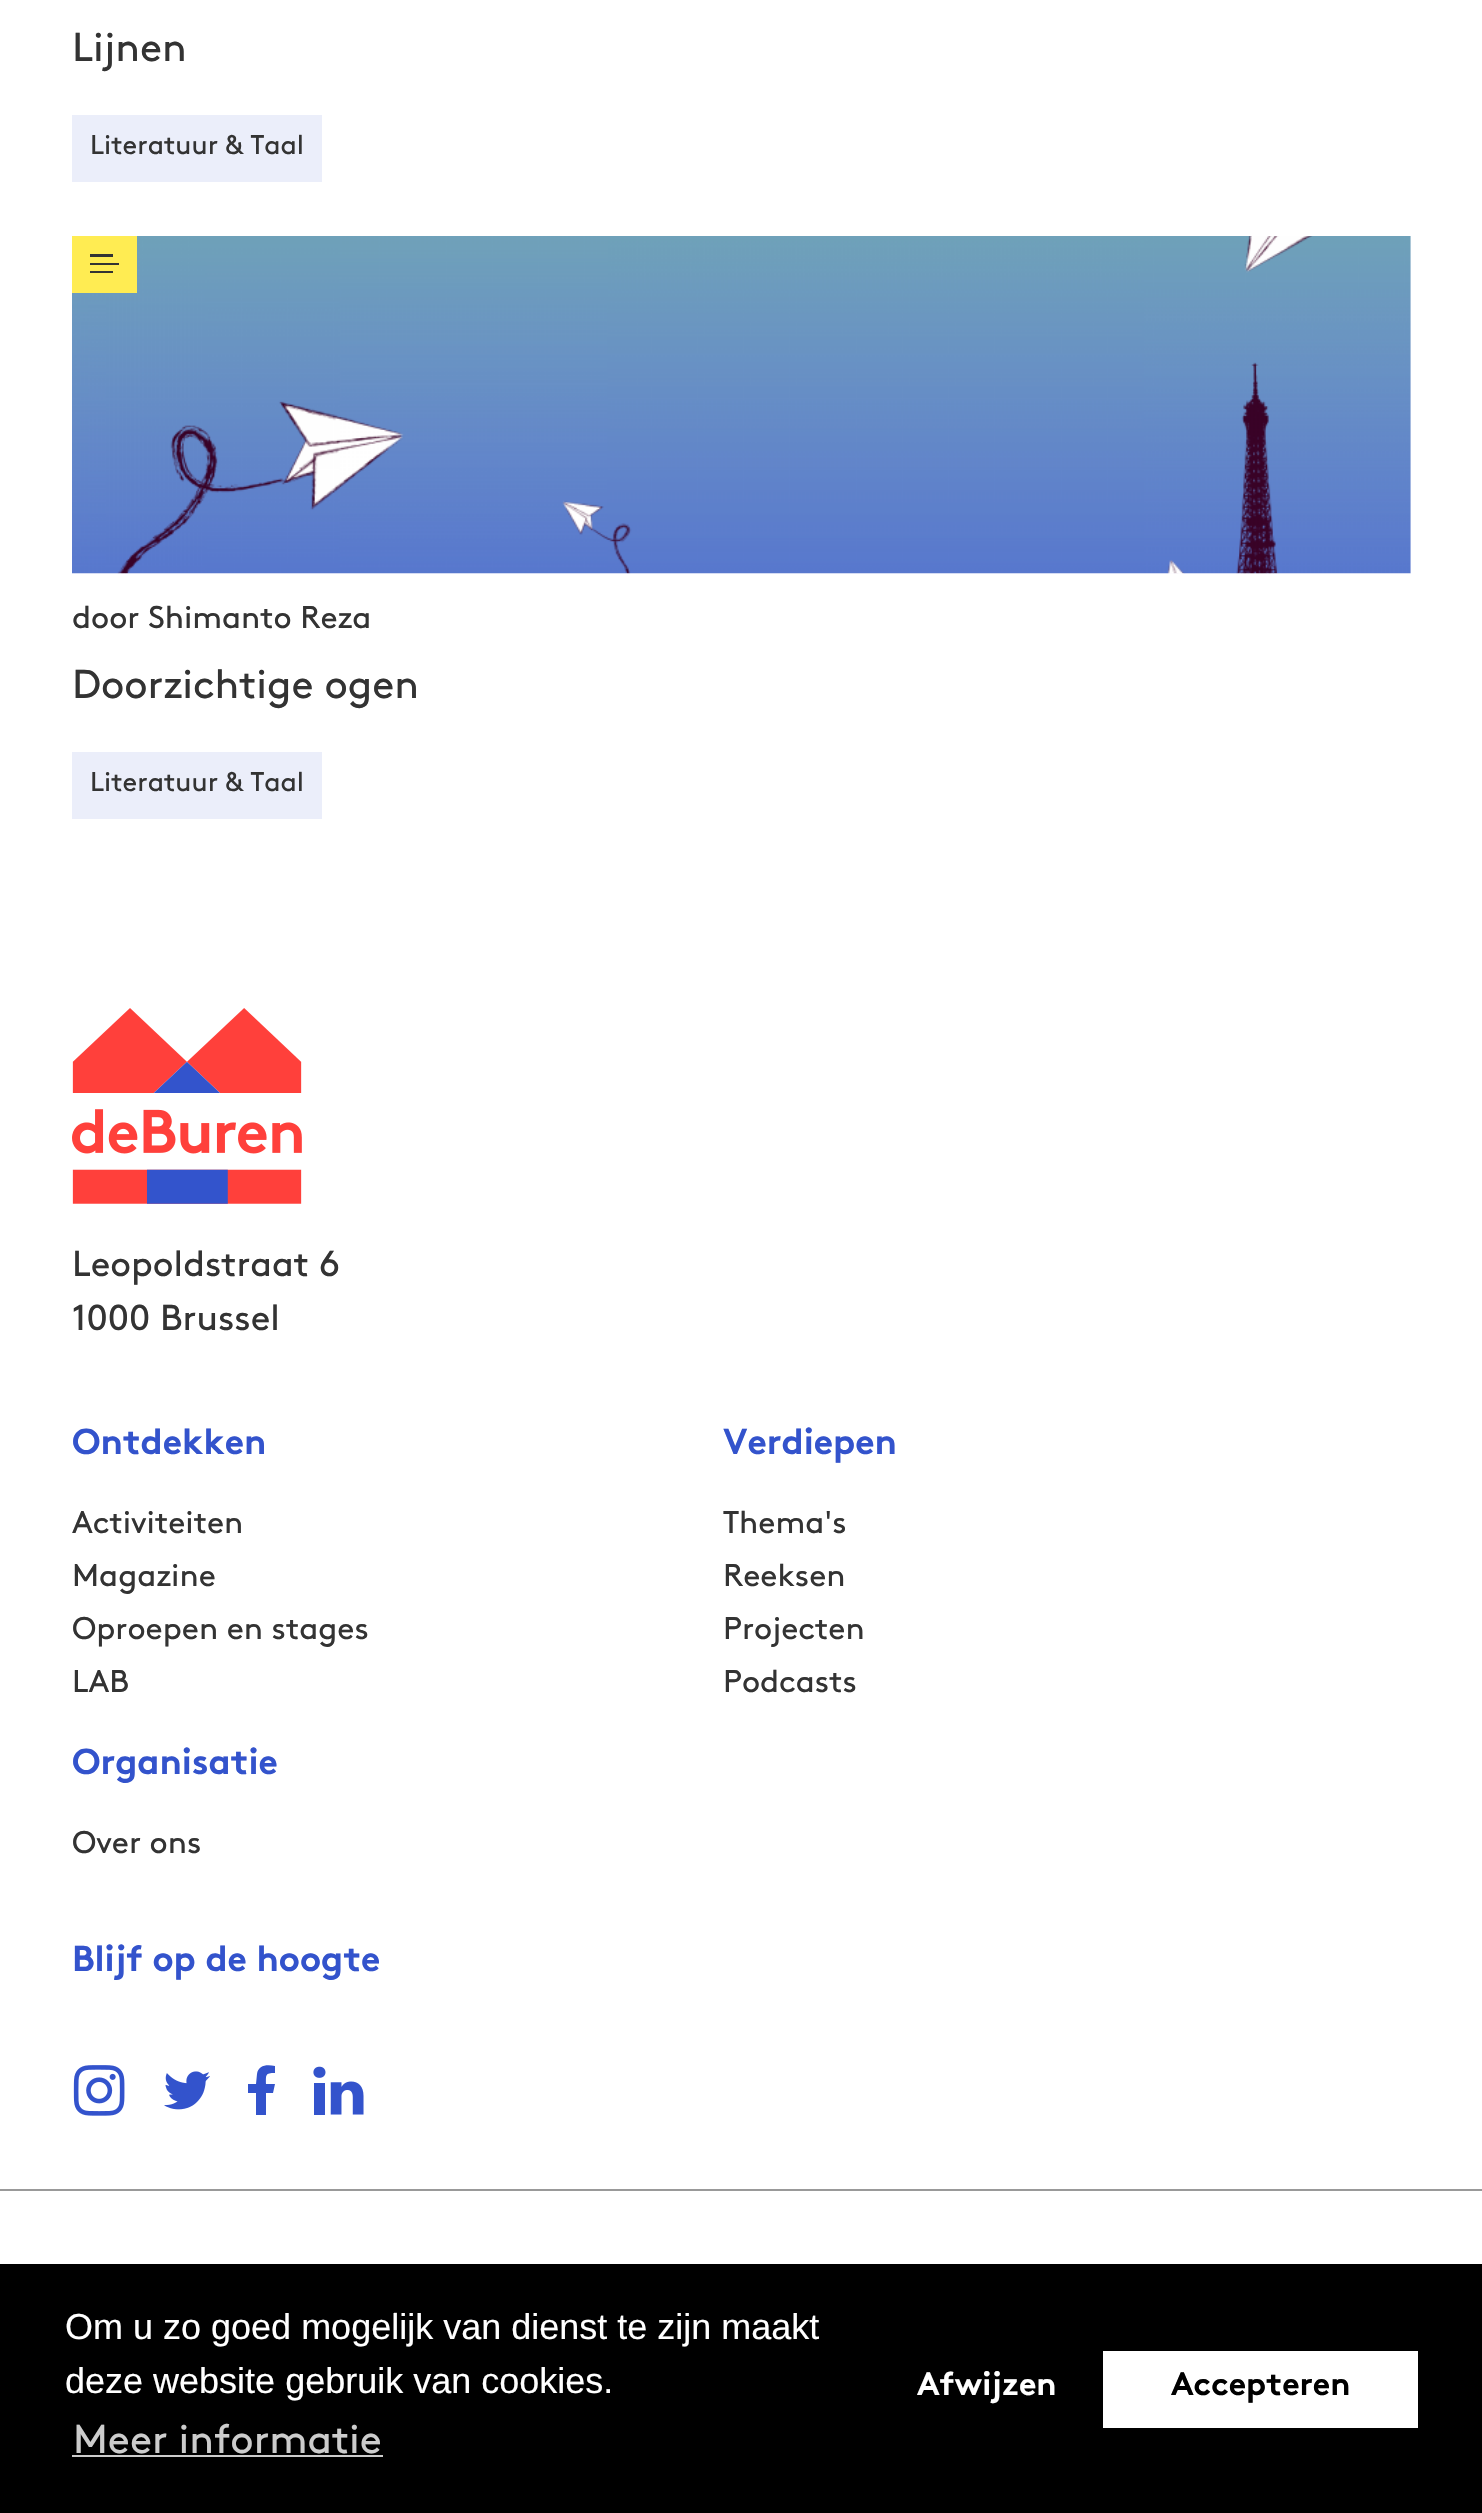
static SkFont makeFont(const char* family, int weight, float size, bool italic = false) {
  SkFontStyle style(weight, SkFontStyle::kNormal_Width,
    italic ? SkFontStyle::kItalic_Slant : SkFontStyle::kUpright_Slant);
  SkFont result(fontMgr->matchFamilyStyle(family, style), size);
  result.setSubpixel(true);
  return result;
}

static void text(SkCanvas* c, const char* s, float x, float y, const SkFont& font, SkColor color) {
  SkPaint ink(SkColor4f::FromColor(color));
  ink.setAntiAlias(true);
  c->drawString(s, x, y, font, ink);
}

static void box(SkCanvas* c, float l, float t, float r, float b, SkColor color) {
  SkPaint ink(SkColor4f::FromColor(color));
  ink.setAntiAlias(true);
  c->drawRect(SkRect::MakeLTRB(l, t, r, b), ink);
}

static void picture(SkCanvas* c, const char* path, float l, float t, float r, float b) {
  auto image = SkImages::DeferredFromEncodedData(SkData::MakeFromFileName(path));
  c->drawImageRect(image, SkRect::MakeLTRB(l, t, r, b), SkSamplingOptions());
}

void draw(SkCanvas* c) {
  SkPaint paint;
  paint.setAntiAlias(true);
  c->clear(0xffffffff);
  SkFont face1 = makeFont("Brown", 400, 40.5f);
  text(c, "Lijnen", 72, 61, face1, 0xff333333);
  box(c, 72, 115, 322, 182, 0xffebeefa);
  SkFont face2 = makeFont("Brown", 400, 27);
  text(c, "Literatuur & Taal", 90, 154, face2, 0xff333333);
  box(c, 72, 236, 1411, 574, 0xfffcfbff);
  picture(c, "img_01.png", 72, 236, 1411, 574);
  box(c, 72, 236, 137, 293, 0xffffec52);
  box(c, 90, 263, 119, 265, 0xff333333);
  box(c, 90, 271, 113, 273, 0xff333333);
  box(c, 90, 254, 113, 257, 0xff333333);
  SkFont face3 = makeFont("Brown", 400, 31.5f);
  text(c, "door Shimanto Reza", 72, 628, face3, 0xff333333);
  text(c, "Doorzichtige ogen", 72, 698, face1, 0xff333333);
  box(c, 72, 752, 322, 819, 0xffebeefa);
  text(c, "Literatuur & Taal", 90, 791, face2, 0xff333333);
  picture(c, "img_02.png", 72, 1008, 302, 1204);
  SkFont face4 = makeFont("Brown", 400, 36);
  text(c, "Leopoldstraat 6", 72, 1276, face4, 0xff333333);
  text(c, "1000 Brussel", 72, 1330, face4, 0xff333333);
  SkFont face5 = makeFont("Brown", 700, 36);
  text(c, "Ontdekken", 72, 1454, face5, 0xff3353cc);
  text(c, "Activiteiten", 72, 1533, face3, 0xff333333);
  text(c, "Magazine", 72, 1586, face3, 0xff333333);
  text(c, "Oproepen en stages", 72, 1639, face3, 0xff333333);
  text(c, "LAB", 72, 1692, face3, 0xff333333);
  text(c, "Verdiepen", 723, 1454, face5, 0xff3353cc);
  text(c, "Thema's", 723, 1533, face3, 0xff333333);
  text(c, "Reeksen", 723, 1586, face3, 0xff333333);
  text(c, "Projecten", 723, 1639, face3, 0xff333333);
  text(c, "Podcasts", 723, 1692, face3, 0xff333333);
  text(c, "Organisatie", 72, 1774, face5, 0xff3353cc);
  text(c, "Over ons", 72, 1853, face3, 0xff333333);
  text(c, "Blijf op de hoogte", 72, 1971, face5, 0xff3353cc);
  picture(c, "img_03.png", 73, 2065, 125, 2116);
  picture(c, "img_04.png", 164, 2071, 210, 2110);
  paint.setColor(0xff3353cc);
  c->drawPath(SkPathBuilder().moveTo(273, 2093).lineTo(275, 2084).lineTo(266, 2084).cubicTo(266, 2075, 265, 2073, 275, 2073).lineTo(275, 2066).cubicTo(267, 2064, 258, 2065, 257, 2074).lineTo(256, 2084).lineTo(248, 2084).lineTo(248, 2093).lineTo(256, 2093).lineTo(256, 2115).cubicTo(260, 2115, 263, 2115, 266, 2115).lineTo(266, 2093).close().detach(), paint);
  picture(c, "img_05.png", 313, 2066, 364, 2115);
  box(c, 0, 2189, 1482, 2191, 0xff999999);
  box(c, 0, 2264, 1482, 2513, 0xff000000);
  SkFont face6 = makeFont("Liberation Sans", 400, 36);
  text(c, "Om u zo goed mogelijk van dienst te zijn maakt", 65, 2339, face6, 0xffffffff);
  text(c, "deze website gebruik van cookies.", 65, 2393, face6, 0xffffffff);
  text(c, "Meer informatie", 73, 2453, face1, 0xffcccccc);
  box(c, 72, 2455, 383, 2457, 0xffcccccc);
  SkFont face7 = makeFont("Brown", 700, 32.5f);
  text(c, "Afwijzen", 917, 2395, face7, 0xffffffff);
  box(c, 1103, 2351, 1418, 2428, 0xffffffff);
  text(c, "Accepteren", 1171, 2395, face7, 0xff000000);
}
